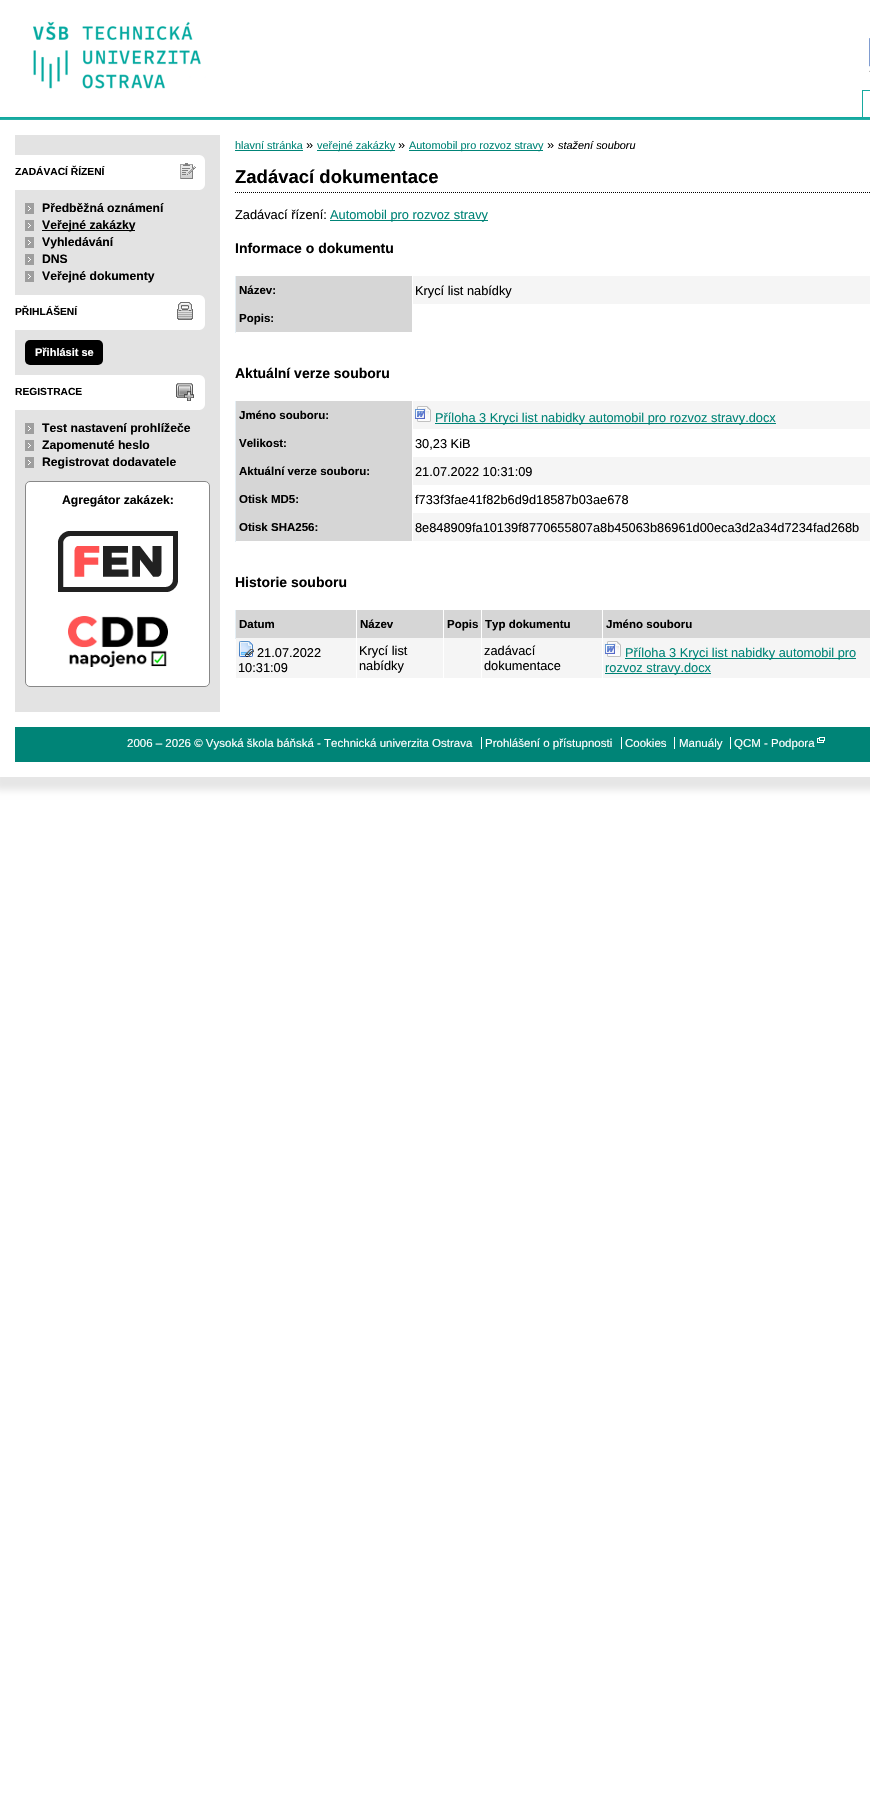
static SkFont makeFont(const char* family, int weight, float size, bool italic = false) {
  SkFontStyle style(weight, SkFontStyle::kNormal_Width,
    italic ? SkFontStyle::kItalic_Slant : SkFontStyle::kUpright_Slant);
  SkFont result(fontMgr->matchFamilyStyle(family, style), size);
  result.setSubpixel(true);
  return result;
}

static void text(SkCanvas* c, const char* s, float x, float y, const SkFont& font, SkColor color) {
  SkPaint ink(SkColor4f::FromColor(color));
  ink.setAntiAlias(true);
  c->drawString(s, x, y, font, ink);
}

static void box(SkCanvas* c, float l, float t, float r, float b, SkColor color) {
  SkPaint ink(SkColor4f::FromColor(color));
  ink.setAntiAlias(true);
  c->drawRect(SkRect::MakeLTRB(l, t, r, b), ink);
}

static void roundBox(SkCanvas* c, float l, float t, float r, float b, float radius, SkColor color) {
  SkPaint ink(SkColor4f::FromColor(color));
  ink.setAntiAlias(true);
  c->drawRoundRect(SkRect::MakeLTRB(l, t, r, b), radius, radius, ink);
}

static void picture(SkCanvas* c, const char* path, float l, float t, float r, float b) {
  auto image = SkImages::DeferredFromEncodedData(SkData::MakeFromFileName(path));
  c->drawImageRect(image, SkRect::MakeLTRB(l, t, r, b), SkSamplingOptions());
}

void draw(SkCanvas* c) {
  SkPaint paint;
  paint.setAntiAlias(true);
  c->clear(0xffffffff);
  box(c, 0, 117, 870, 120, 0xff00a499);
  picture(c, "img_01.png", 0, 2, 224, 89);
  picture(c, "img_02.png", 869, 38, 870, 72);
  c->save();
  c->clipPath(SkPathBuilder(SkPathFillType::kEvenOdd).moveTo(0, 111).lineTo(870, 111).lineTo(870, 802).lineTo(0, 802).close().moveTo(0, 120).lineTo(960, 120).lineTo(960, 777).lineTo(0, 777).close().detach(), true);
  paint.setColor(0xffe6e6e6);
  paint.setMaskFilter(SkMaskFilter::MakeBlur(kNormal_SkBlurStyle, 3.5f));
  c->drawRect(SkRect::MakeLTRB(-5, 123, 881, 790), paint);
  paint.setMaskFilter(nullptr);
  c->restore();
  box(c, 863, 117, 870, 118, 0xffffffff);
  paint.setStyle(SkPaint::kStroke_Style);
  paint.setStrokeWidth(1);
  paint.setColor(0xff17aaa0);
  c->drawRect(SkRect::MakeLTRB(862.5f, 90.5f, 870.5f, 117.5f), paint);
  box(c, 15, 135, 220, 712, 0xffe3e3e3);
  picture(c, "img_03.png", 15, 155, 205, 190);
  SkFont face1 = makeFont("Liberation Sans", 700, 10.25f);
  text(c, "ZADÁVACÍ ŘÍZENÍ", 15, 175, face1, 0xff000000);
  picture(c, "img_04.png", 25, 203, 34, 214);
  SkFont face2 = makeFont("Liberation Sans", 700, 12.2f);
  text(c, "Předběžná oznámení", 42, 212, face2, 0xff000000);
  picture(c, "img_04.png", 25, 220, 34, 231);
  box(c, 42, 230, 135, 231, 0xff000000);
  text(c, "Veřejné zakázky", 42, 229, face2, 0xff000000);
  picture(c, "img_04.png", 25, 237, 34, 248);
  text(c, "Vyhledávání", 42, 246, face2, 0xff000000);
  picture(c, "img_04.png", 25, 254, 34, 265);
  text(c, "DNS", 42, 263, face2, 0xff000000);
  picture(c, "img_04.png", 25, 271, 34, 282);
  text(c, "Veřejné dokumenty", 42, 280, face2, 0xff000000);
  picture(c, "img_05.png", 15, 295, 205, 330);
  text(c, "PŘIHLÁŠENÍ", 15, 315, face1, 0xff000000);
  roundBox(c, 25, 340, 103, 365, 5, 0xff000000);
  SkFont face3 = makeFont("Liberation Sans", 700, 11);
  text(c, "Přihlásit se", 35, 356, face3, 0xffffffff);
  picture(c, "img_06.png", 15, 375, 205, 410);
  text(c, "REGISTRACE", 15, 395, face1, 0xff000000);
  picture(c, "img_04.png", 25, 423, 34, 434);
  text(c, "Test nastavení prohlížeče", 42, 432, face2, 0xff000000);
  picture(c, "img_04.png", 25, 440, 34, 451);
  text(c, "Zapomenuté heslo", 42, 449, face2, 0xff000000);
  picture(c, "img_04.png", 25, 457, 34, 468);
  text(c, "Registrovat dodavatele", 42, 466, face2, 0xff000000);
  paint.setStyle(SkPaint::kFill_Style);
  paint.setColor(0xffffffff);
  c->drawRoundRect(SkRect::MakeLTRB(25.5f, 481.5f, 209.5f, 686.5f), 4.5f, 4.5f, paint);
  paint.setStyle(SkPaint::kStroke_Style);
  paint.setColor(0xff888888);
  c->drawRoundRect(SkRect::MakeLTRB(25.5f, 481.5f, 209.5f, 686.5f), 4.5f, 4.5f, paint);
  text(c, "Agregátor zakázek:", 62, 504, face2, 0xff000000);
  picture(c, "img_07.png", 58, 531, 178, 592);
  picture(c, "img_08.png", 68, 616, 168, 667);
  SkFont face4 = makeFont("Liberation Sans", 400, 10.9f);
  text(c, "hlavní stránka", 235, 149, face4, 0xff008477);
  box(c, 235, 150, 303, 151, 0xff008477);
  SkFont face5 = makeFont("Liberation Sans", 400, 12.8f);
  text(c, "»", 306, 149, face5, 0xff000000);
  box(c, 317, 150, 395, 151, 0xff008477);
  text(c, "veřejné zakázky", 317, 149, face4, 0xff008477);
  text(c, "»", 398, 149, face5, 0xff000000);
  box(c, 409, 150, 543, 151, 0xff008477);
  text(c, "Automobil pro rozvoz stravy", 409, 149, face4, 0xff008477);
  text(c, "»", 547, 149, face5, 0xff000000);
  SkFont face6 = makeFont("Liberation Sans", 400, 10.9f, true);
  text(c, "stažení souboru", 558, 149, face6, 0xff000000);
  paint.setColor(0xff000000);
  paint.setPathEffect(SkDashPathEffect::Make({{1, 1}}, 0));
  c->drawPath(SkPathBuilder().moveTo(235, 192.5f).lineTo(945, 192.5f).detach(), paint);
  paint.setPathEffect(nullptr);
  SkFont face7 = makeFont("Liberation Sans", 700, 18.5f);
  text(c, "Zadávací dokumentace", 235, 183, face7, 0xff000000);
  text(c, "Zadávací řízení:", 235, 219, face5, 0xff000000);
  box(c, 330, 220, 488, 221, 0xff008477);
  text(c, "Automobil pro rozvoz stravy", 330, 219, face5, 0xff008477);
  SkFont face8 = makeFont("Liberation Sans", 700, 14);
  text(c, "Informace o dokumentu", 235, 253, face8, 0xff000000);
  box(c, 413, 276, 870, 304, 0xfff5f5f5);
  box(c, 236, 276, 412, 332, 0xffd6d6d6);
  SkFont face9 = makeFont("Liberation Sans", 700, 11.5f);
  text(c, "Název:", 239, 294, face9, 0xff000000);
  text(c, "Krycí list nabídky", 415, 295, face5, 0xff000000);
  box(c, 235, 276, 236, 333, 0xffe5eff5);
  text(c, "Popis:", 239, 322, face9, 0xff000000);
  text(c, "Aktuální verze souboru", 235, 378, face8, 0xff000000);
  box(c, 413, 401, 870, 429, 0xfff5f5f5);
  box(c, 236, 401, 412, 541, 0xffd6d6d6);
  text(c, "Jméno souboru:", 239, 419, face9, 0xff000000);
  picture(c, "img_09.png", 415, 406, 431, 422);
  box(c, 435, 423, 776, 424, 0xff008477);
  text(c, "Příloha 3 Kryci list nabidky automobil pro rozvoz stravy.docx", 435, 422, face5, 0xff008477);
  text(c, "Velikost:", 239, 447, face9, 0xff000000);
  text(c, "30,23 KiB", 415, 448, face5, 0xff000000);
  box(c, 413, 457, 870, 485, 0xfff5f5f5);
  text(c, "Aktuální verze souboru:", 239, 475, face9, 0xff000000);
  text(c, "21.07.2022 10:31:09", 415, 476, face5, 0xff000000);
  text(c, "Otisk MD5:", 239, 503, face9, 0xff000000);
  text(c, "f733f3fae41f82b6d9d18587b03ae678", 415, 504, face5, 0xff000000);
  box(c, 413, 513, 870, 541, 0xfff5f5f5);
  box(c, 235, 401, 236, 542, 0xffe5eff5);
  text(c, "Otisk SHA256:", 239, 531, face9, 0xff000000);
  text(c, "8e848909fa10139f8770655807a8b45063b86961d00eca3d2a34d7234fad268b", 415, 532, face5, 0xff000000);
  text(c, "Historie souboru", 235, 587, face8, 0xff000000);
  box(c, 236, 610, 356, 638, 0xffd6d6d6);
  box(c, 235, 610, 236, 639, 0xffe5eff5);
  text(c, "Datum", 239, 628, face9, 0xff000000);
  box(c, 357, 610, 443, 638, 0xffd6d6d6);
  text(c, "Název", 360, 628, face9, 0xff000000);
  box(c, 444, 610, 481, 638, 0xffd6d6d6);
  text(c, "Popis", 447, 628, face9, 0xff000000);
  box(c, 482, 610, 602, 638, 0xffd6d6d6);
  text(c, "Typ dokumentu", 485, 628, face9, 0xff000000);
  box(c, 603, 610, 870, 638, 0xffd6d6d6);
  text(c, "Jméno souboru", 606, 628, face9, 0xff000000);
  box(c, 236, 638, 870, 678, 0xfff5f5f5);
  box(c, 356, 638, 357, 679, 0xffffffff);
  picture(c, "img_10.png", 239, 641, 254, 657);
  text(c, "21.07.2022", 257, 657, face5, 0xff000000);
  text(c, "10:31:09", 238, 672, face5, 0xff000000);
  box(c, 443, 638, 444, 679, 0xffffffff);
  text(c, "Krycí list", 359, 655, face5, 0xff000000);
  text(c, "nabídky", 359, 670, face5, 0xff000000);
  box(c, 481, 638, 482, 679, 0xffffffff);
  box(c, 602, 638, 603, 679, 0xffffffff);
  text(c, "zadávací", 484, 655, face5, 0xff000000);
  text(c, "dokumentace", 484, 670, face5, 0xff000000);
  picture(c, "img_09.png", 605, 641, 621, 657);
  box(c, 625, 658, 856, 659, 0xff008477);
  text(c, "Příloha 3 Kryci list nabidky automobil pro", 625, 657, face5, 0xff008477);
  box(c, 605, 673, 711, 674, 0xff008477);
  text(c, "rozvoz stravy.docx", 605, 672, face5, 0xff008477);
  box(c, 15, 727, 870, 762, 0xff008477);
  SkFont face10 = makeFont("Liberation Sans", 400, 11.5f);
  text(c, "2006 – 2026 © Vysoká škola báňská - Technická univerzita Ostrava", 127, 747, face10, 0xffffffff);
  box(c, 481, 737, 482, 749, 0xffffffff);
  text(c, "Prohlášení o přístupnosti", 485, 747, face10, 0xffffffff);
  box(c, 621, 737, 622, 749, 0xffffffff);
  text(c, "Cookies", 625, 747, face10, 0xffffffff);
  box(c, 674, 737, 675, 749, 0xffffffff);
  text(c, "Manuály", 679, 747, face10, 0xffffffff);
  box(c, 730, 737, 731, 749, 0xffffffff);
  text(c, "QCM - Podpora", 734, 747, face10, 0xffffffff);
  picture(c, "img_11.png", 817, 737, 825, 743);
}
